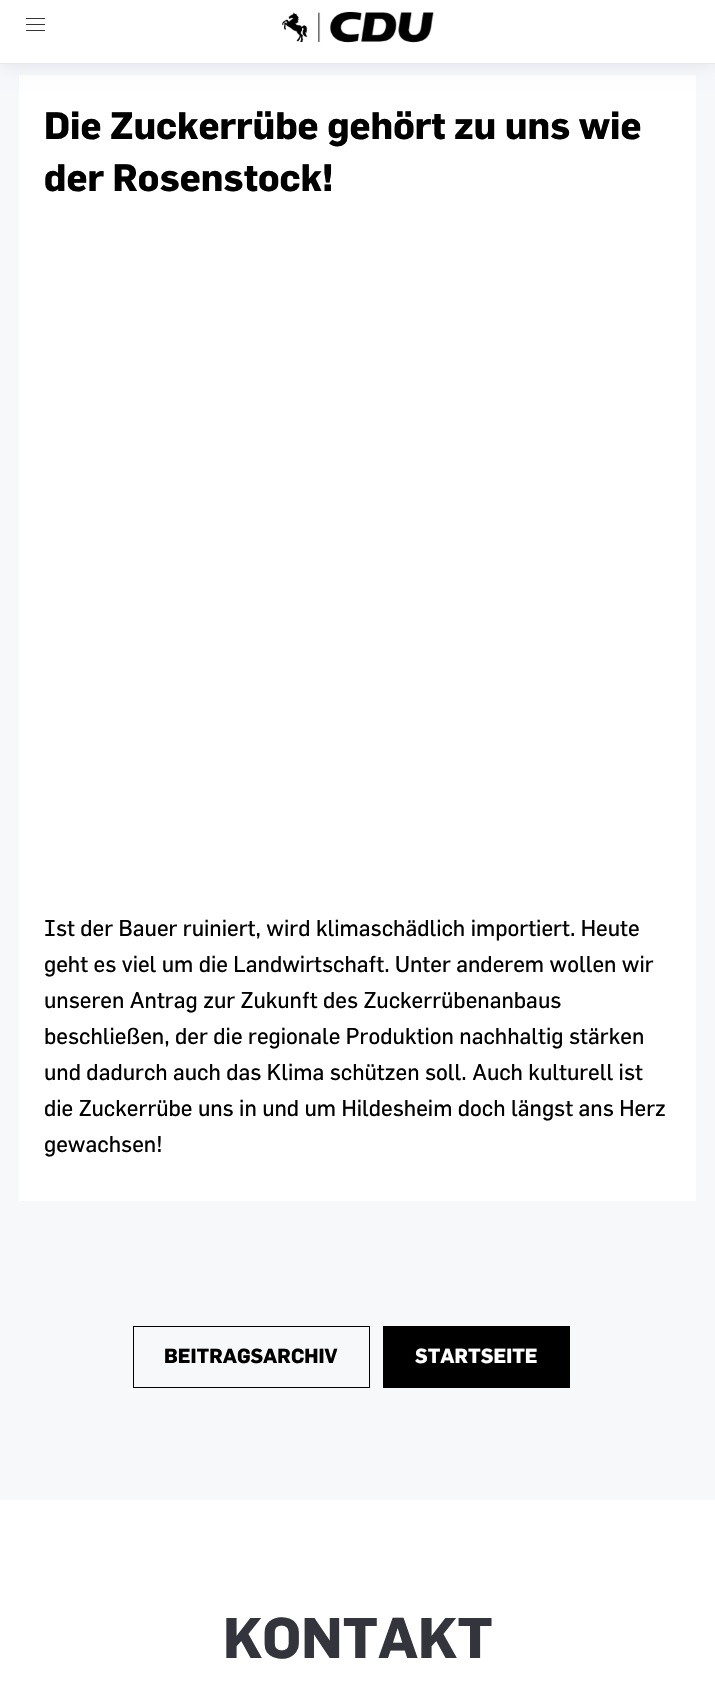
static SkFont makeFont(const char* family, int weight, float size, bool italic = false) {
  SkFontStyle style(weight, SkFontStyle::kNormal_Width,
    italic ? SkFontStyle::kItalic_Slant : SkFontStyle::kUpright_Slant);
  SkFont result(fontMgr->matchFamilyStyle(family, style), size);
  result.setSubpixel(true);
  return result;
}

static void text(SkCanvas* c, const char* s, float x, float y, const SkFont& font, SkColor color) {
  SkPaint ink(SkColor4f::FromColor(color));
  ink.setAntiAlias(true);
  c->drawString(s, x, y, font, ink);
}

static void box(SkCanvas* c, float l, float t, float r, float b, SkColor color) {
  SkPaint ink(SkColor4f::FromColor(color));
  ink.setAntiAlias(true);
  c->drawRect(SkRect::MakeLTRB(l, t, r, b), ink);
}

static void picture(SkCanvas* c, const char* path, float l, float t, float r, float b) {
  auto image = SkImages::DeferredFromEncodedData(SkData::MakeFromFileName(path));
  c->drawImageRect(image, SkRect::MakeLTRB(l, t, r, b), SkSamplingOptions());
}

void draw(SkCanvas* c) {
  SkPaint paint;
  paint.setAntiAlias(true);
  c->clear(0xffffffff);
  box(c, 0, 64, 715, 1500, 0xfff7f8fa);
  box(c, 19, 75, 696, 1201, 0xffffffff);
  paint.setColor(0x17000032);
  paint.setMaskFilter(SkMaskFilter::MakeBlur(kNormal_SkBlurStyle, 9.5f));
  c->drawRect(SkRect::MakeLTRB(0, 0, 715, 64), paint);
  paint.setMaskFilter(nullptr);
  box(c, 0, 0, 715, 63, 0xffffffff);
  box(c, 0, 63, 715, 64, 0xffe8e8ec);
  box(c, 26, 30, 45, 31, 0xff34343c);
  box(c, 26, 18, 45, 19, 0xff34343c);
  box(c, 26, 24, 45, 25, 0xff34343c);
  picture(c, "img_01.png", 282, 11, 434, 43);
  SkFont face1 = makeFont("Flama", 700, 37.5f);
  text(c, "Die Zuckerrübe gehört zu uns wie", 44, 139, face1, 0xff000000);
  text(c, "der Rosenstock!", 44, 191, face1, 0xff000000);
  SkFont face2 = makeFont("Flama", 400, 22.5f);
  text(c, "Ist der Bauer ruiniert, wird klimaschädlich importiert. Heute", 44, 936, face2, 0xff000000);
  text(c, "geht es viel um die Landwirtschaft. Unter anderem wollen wir", 44, 972, face2, 0xff000000);
  text(c, "unseren Antrag zur Zukunft des Zuckerrübenanbaus", 44, 1008, face2, 0xff000000);
  text(c, "beschließen, der die regionale Produktion nachhaltig stärken", 44, 1044, face2, 0xff000000);
  text(c, "und dadurch auch das Klima schützen soll. Auch kulturell ist", 44, 1080, face2, 0xff000000);
  text(c, "die Zuckerrübe uns in und um Hildesheim doch längst ans Herz", 44, 1116, face2, 0xff000000);
  text(c, "gewachsen!", 44, 1152, face2, 0xff000000);
  paint.setStyle(SkPaint::kStroke_Style);
  paint.setStrokeWidth(1);
  paint.setColor(0xff000000);
  c->drawRect(SkRect::MakeLTRB(133.5f, 1326.5f, 369.5f, 1387.5f), paint);
  SkFont face3 = makeFont("Flama", 700, 20);
  text(c, "BEITRAGSARCHIV", 164, 1363, face3, 0xff000000);
  box(c, 383, 1326, 570, 1388, 0xff000000);
  text(c, "STARTSEITE", 415, 1363, face3, 0xffffffff);
  SkFont face4 = makeFont("Flama", 700, 56.25f);
  text(c, "KONTAKT", 223, 1658, face4, 0xff34343c);
}
